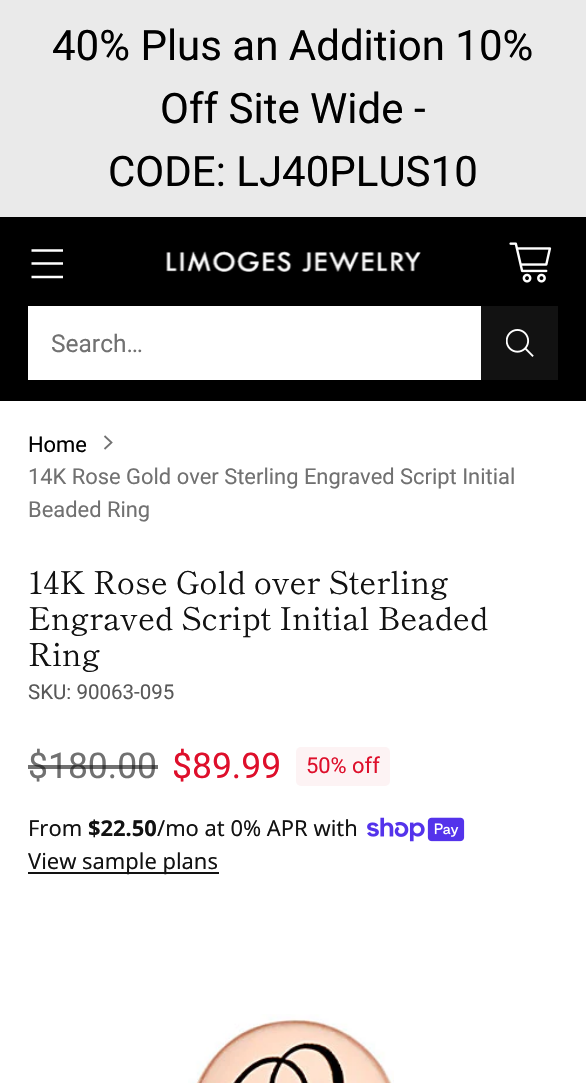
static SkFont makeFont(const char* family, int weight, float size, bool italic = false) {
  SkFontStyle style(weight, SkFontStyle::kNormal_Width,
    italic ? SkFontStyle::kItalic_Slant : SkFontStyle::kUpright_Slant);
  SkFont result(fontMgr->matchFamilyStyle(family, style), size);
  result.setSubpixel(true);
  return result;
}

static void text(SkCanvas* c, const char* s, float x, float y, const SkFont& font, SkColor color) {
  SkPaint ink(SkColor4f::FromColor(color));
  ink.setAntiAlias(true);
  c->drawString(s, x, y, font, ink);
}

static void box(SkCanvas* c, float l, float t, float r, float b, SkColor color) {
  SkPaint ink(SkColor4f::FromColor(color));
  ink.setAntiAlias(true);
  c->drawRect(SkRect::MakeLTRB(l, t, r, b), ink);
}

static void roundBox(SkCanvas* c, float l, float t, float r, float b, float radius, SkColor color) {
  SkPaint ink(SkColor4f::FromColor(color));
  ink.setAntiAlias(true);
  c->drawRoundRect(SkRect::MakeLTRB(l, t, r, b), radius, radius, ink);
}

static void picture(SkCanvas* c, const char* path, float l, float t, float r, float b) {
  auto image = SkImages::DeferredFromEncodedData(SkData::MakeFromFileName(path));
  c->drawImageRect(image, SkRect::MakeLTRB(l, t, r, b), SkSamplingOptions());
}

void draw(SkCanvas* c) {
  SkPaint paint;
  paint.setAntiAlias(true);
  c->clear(0xffffffff);
  box(c, 0, 0, 586, 217, 0xffeaeaea);
  SkFont face1 = makeFont("Roboto", 400, 42);
  text(c, "40% Plus an Addition 10%", 52, 60, face1, 0xff000000);
  text(c, "Off Site Wide -", 160, 123, face1, 0xff000000);
  text(c, "CODE: LJ40PLUS10", 108, 186, face1, 0xff000000);
  box(c, 0, 217, 586, 401, 0xff000000);
  paint.setStyle(SkPaint::kStroke_Style);
  paint.setStrokeWidth(2.3f);
  paint.setColor(0xffffffff);
  c->drawPath(SkPathBuilder().moveTo(31.5f, 263.5f).lineTo(63, 263.5f).moveTo(31.5f, 250.5f).lineTo(63, 250.5f).moveTo(31.5f, 277).lineTo(63, 277).detach(), paint);
  picture(c, "img_01.png", 166, 251, 421, 272);
  picture(c, "img_02.png", 509, 242, 552, 283);
  box(c, 28, 306, 481, 380, 0xffffffff);
  SkFont face2 = makeFont("Roboto", 400, 24.5f);
  text(c, "Search…", 51, 352, face2, 0xff717171);
  box(c, 481, 306, 558, 380, 0xff121212);
  picture(c, "img_03.png", 506, 329, 534, 357);
  SkFont face3 = makeFont("Roboto", 400, 21.9f);
  text(c, "Home", 28, 452, face3, 0xff000000);
  paint.setStrokeWidth(1.8f);
  paint.setColor(0xff717171);
  c->drawPath(SkPathBuilder().moveTo(104.5f, 449).lineTo(111.5f, 442.5f).lineTo(104.5f, 436).detach(), paint);
  text(c, "14K Rose Gold over Sterling Engraved Script Initial", 28, 484, face3, 0xff717171);
  text(c, "Beaded Ring", 28, 517, face3, 0xff717171);
  SkFont face4 = makeFont("Shippori Mincho", 400, 31.5f);
  text(c, "14K Rose Gold over Sterling", 28, 594, face4, 0xff121212);
  text(c, "Engraved Script Initial Beaded", 28, 630, face4, 0xff121212);
  text(c, "Ring", 28, 666, face4, 0xff121212);
  SkFont face5 = makeFont("Roboto", 400, 20.5f);
  text(c, "SKU: 90063-095", 28, 699, face5, 0xff595959);
  SkFont face6 = makeFont("Roboto", 400, 35.5f);
  text(c, "$180.00", 28, 778, face6, 0xff717171);
  box(c, 28, 765, 158, 769, 0x99121212);
  text(c, "$89.99", 172, 778, face6, 0xffde0f2b);
  roundBox(c, 296, 747, 390, 786, 5, 0xfffdf3f4);
  text(c, "50% off", 306, 773, face3, 0xffde0f2b);
  SkFont face7 = makeFont("Noto Sans", 400, 21.9f);
  text(c, "From", 28, 836, face7, 0xff121212);
  SkFont face8 = makeFont("Noto Sans", 700, 21.9f);
  text(c, "$22.50", 88, 836, face8, 0xff121212);
  text(c, "/mo at 0% APR with", 157, 836, face7, 0xff121212);
  picture(c, "img_04.png", 367, 817, 465, 842);
  box(c, 28, 872, 219, 874, 0xff121212);
  text(c, "View sample plans", 28, 869, face7, 0xff121212);
  picture(c, "img_05.png", 188, 1014, 394, 1083);
}
